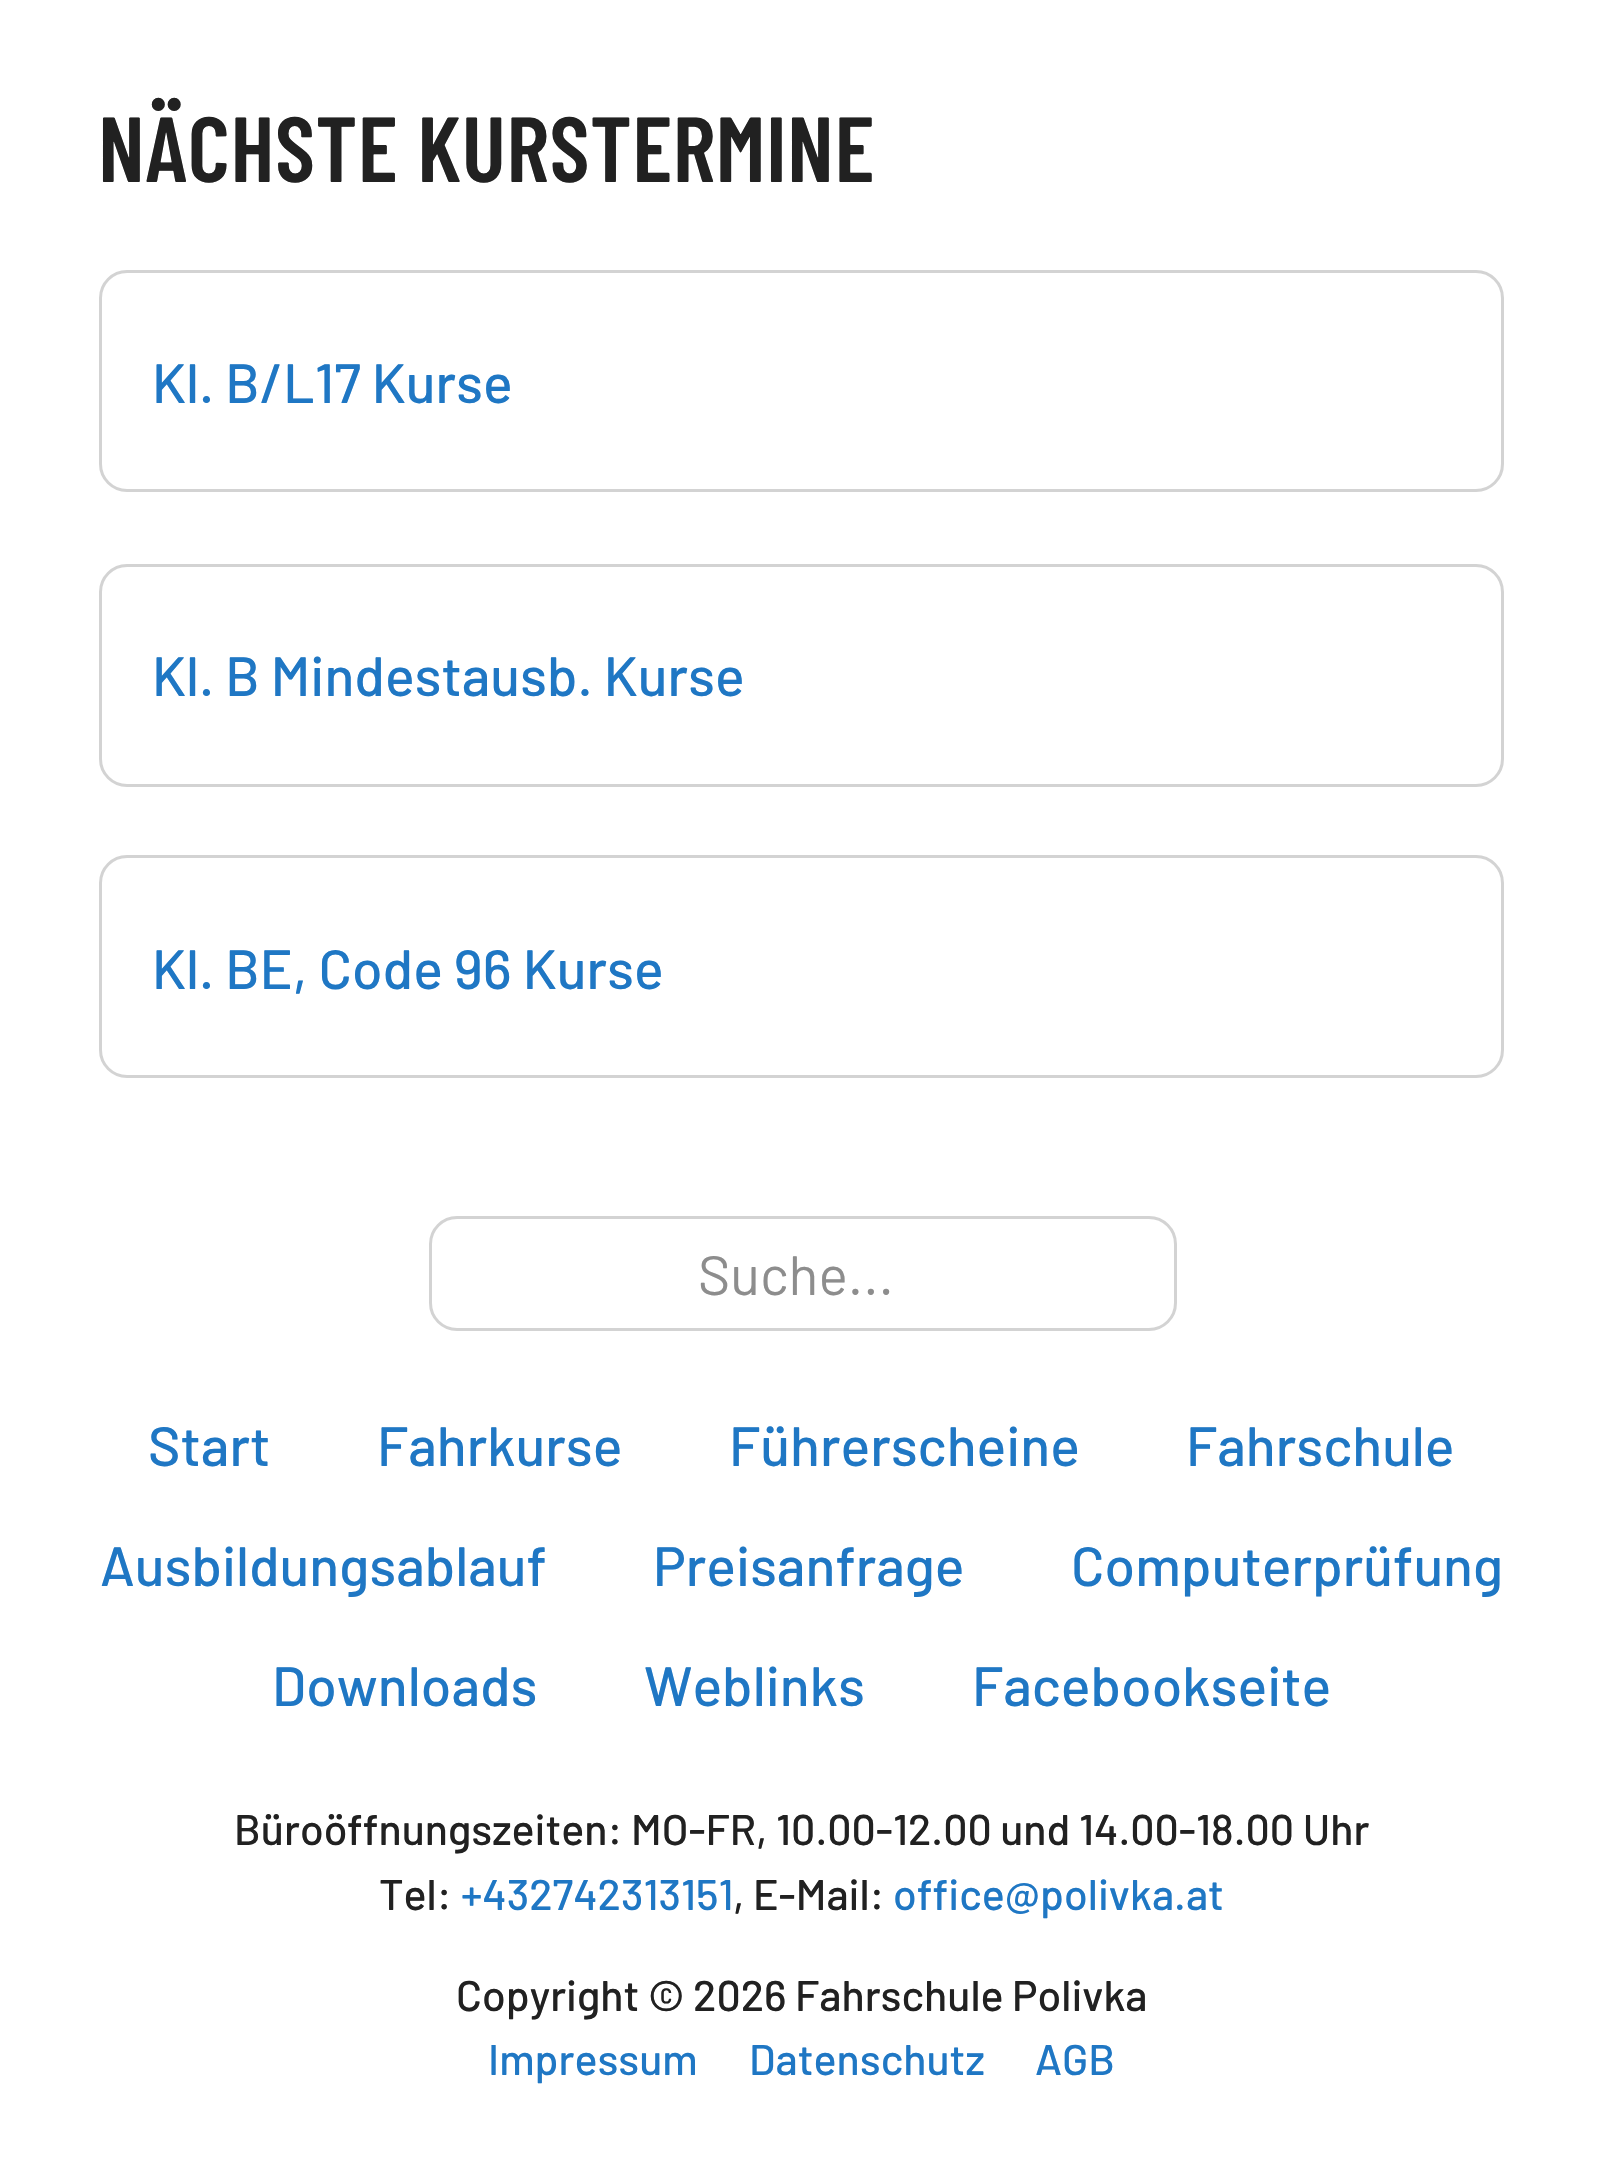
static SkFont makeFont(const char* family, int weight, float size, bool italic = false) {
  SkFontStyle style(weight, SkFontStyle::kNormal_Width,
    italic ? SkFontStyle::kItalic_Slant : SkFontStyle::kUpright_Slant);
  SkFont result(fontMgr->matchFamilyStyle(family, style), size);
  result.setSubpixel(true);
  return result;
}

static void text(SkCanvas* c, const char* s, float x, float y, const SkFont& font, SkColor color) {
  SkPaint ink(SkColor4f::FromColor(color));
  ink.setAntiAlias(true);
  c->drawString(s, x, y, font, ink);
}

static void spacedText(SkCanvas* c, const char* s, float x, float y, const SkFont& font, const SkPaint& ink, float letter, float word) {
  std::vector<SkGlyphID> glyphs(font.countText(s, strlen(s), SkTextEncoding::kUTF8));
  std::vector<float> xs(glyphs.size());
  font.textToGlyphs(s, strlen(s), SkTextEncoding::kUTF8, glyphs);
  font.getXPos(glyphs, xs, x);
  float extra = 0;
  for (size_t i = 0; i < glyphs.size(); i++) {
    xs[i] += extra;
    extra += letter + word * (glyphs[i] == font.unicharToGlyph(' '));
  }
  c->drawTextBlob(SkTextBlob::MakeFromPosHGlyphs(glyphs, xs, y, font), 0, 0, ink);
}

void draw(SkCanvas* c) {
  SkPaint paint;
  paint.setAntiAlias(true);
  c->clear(0xffffffff);
  SkFont face1 = makeFont("Barlow Condensed", 600, 92.25f);
  paint.setColor(0xff212121);
  spacedText(c, "NÄCHSTE KURSTERMINE", 98, 182, face1, paint, 0.5f, 0);
  paint.setStyle(SkPaint::kStroke_Style);
  paint.setStrokeWidth(3);
  paint.setColor(0xffd3d3d3);
  c->drawRoundRect(SkRect::MakeLTRB(100.5f, 271.5f, 1502.5f, 490.5f), 26.5f, 26.5f, paint);
  SkFont face2 = makeFont("Barlow", 500, 55.25f);
  text(c, "Kl. B/L17 Kurse", 152, 403, face2, 0xff1f77c4);
  c->drawRoundRect(SkRect::MakeLTRB(100.5f, 565.5f, 1502.5f, 785.5f), 26.5f, 26.5f, paint);
  text(c, "Kl. B Mindestausb. Kurse", 152, 696, face2, 0xff1f77c4);
  c->drawRoundRect(SkRect::MakeLTRB(100.5f, 856.5f, 1502.5f, 1076.5f), 26.5f, 26.5f, paint);
  text(c, "Kl. BE, Code 96 Kurse", 152, 989, face2, 0xff1f77c4);
  c->drawRoundRect(SkRect::MakeLTRB(430.5f, 1217.5f, 1175.5f, 1329.5f), 26.5f, 26.5f, paint);
  SkFont face3 = makeFont("Barlow", 400, 55.25f);
  text(c, "Suche...", 698, 1295, face3, 0xff8d8d8d);
  text(c, "Start", 148, 1466, face2, 0xff1f77c4);
  text(c, "Fahrkurse", 377, 1466, face2, 0xff1f77c4);
  text(c, "Führerscheine", 729, 1466, face2, 0xff1f77c4);
  text(c, "Fahrschule", 1186, 1466, face2, 0xff1f77c4);
  text(c, "Ausbildungsablauf", 100, 1586, face2, 0xff1f77c4);
  text(c, "Preisanfrage", 653, 1586, face2, 0xff1f77c4);
  text(c, "Computerprüfung", 1071, 1586, face2, 0xff1f77c4);
  text(c, "Downloads", 272, 1706, face2, 0xff1f77c4);
  text(c, "Weblinks", 644, 1706, face2, 0xff1f77c4);
  text(c, "Facebookseite", 972, 1706, face2, 0xff1f77c4);
  SkFont face4 = makeFont("Barlow", 500, 42.9f);
  text(c, "Büroöffnungszeiten: MO-FR, 10.00-12.00 und 14.00-18.00 Uhr", 234, 1845, face4, 0xff212121);
  text(c, "Tel:", 379, 1910, face4, 0xff212121);
  text(c, "+432742313151", 461, 1910, face4, 0xff1f77c4);
  text(c, ", E-Mail:", 733, 1910, face4, 0xff212121);
  text(c, "office@polivka.at", 893, 1910, face4, 0xff1f77c4);
  text(c, "Copyright © 2026 Fahrschule Polivka", 456, 2011, face4, 0xff212121);
  text(c, "Impressum", 488, 2075, face4, 0xff1f77c4);
  text(c, "Datenschutz", 749, 2075, face4, 0xff1f77c4);
  text(c, "AGB", 1035, 2075, face4, 0xff1f77c4);
}
